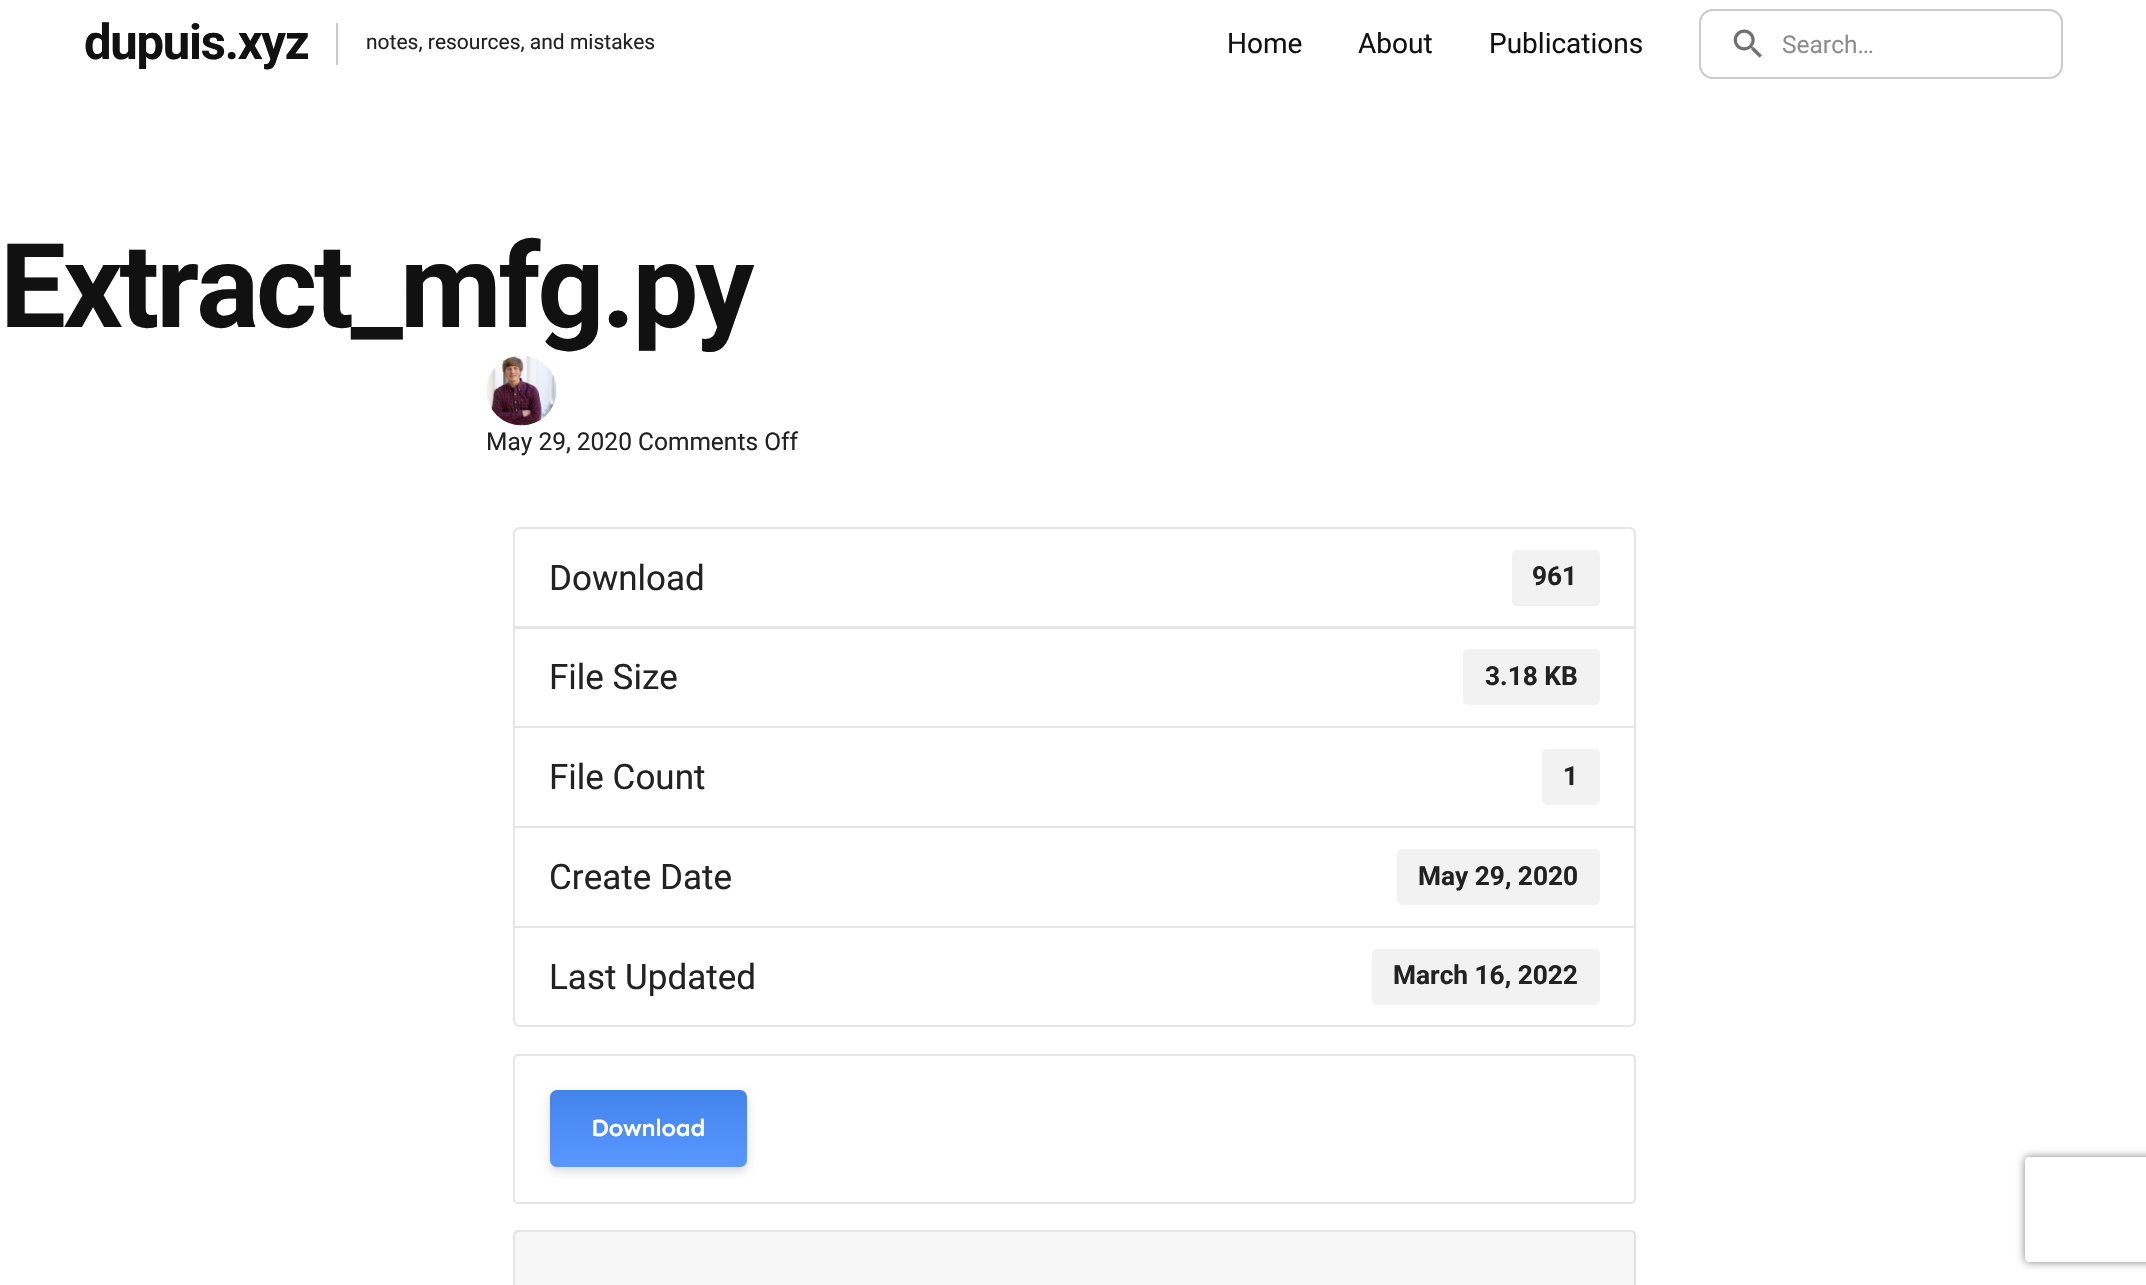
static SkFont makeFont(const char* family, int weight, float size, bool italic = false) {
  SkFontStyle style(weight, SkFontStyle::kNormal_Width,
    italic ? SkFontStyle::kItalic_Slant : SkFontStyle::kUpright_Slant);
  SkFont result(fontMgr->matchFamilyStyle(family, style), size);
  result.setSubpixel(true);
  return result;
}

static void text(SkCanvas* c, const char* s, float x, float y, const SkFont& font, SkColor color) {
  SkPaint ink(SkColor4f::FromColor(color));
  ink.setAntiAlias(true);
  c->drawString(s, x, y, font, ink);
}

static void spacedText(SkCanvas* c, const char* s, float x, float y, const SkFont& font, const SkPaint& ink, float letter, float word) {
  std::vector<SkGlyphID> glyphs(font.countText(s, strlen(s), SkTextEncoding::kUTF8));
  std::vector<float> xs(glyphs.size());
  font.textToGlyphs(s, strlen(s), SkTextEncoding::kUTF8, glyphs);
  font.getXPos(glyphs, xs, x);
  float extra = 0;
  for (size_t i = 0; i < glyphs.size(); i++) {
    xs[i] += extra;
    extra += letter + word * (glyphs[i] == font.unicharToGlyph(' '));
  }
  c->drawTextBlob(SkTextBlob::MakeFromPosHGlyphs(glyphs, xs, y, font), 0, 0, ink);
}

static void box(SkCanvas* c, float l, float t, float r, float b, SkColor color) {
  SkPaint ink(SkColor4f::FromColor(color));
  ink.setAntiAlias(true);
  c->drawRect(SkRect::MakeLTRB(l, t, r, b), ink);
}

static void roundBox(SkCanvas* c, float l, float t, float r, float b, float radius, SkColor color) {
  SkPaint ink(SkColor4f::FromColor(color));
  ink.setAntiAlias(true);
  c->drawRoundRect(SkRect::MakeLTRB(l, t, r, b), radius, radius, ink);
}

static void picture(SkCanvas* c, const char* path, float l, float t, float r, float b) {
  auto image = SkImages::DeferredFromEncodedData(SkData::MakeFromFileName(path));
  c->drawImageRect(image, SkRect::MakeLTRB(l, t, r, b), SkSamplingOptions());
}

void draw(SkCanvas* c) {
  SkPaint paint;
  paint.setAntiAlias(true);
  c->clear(0xffffffff);
  SkFont face1 = makeFont("Roboto", 700, 49);
  paint.setColor(0xff111111);
  spacedText(c, "dupuis.xyz", 84, 59, face1, paint, -1.25f, 0);
  box(c, 336, 23, 338, 65, 0xffcacaca);
  SkFont face2 = makeFont("Roboto", 400, 21);
  text(c, "notes, resources, and mistakes", 366, 49, face2, 0xff222222);
  SkFont face3 = makeFont("Roboto", 400, 28);
  text(c, "Home", 1227, 53, face3, 0xff111111);
  text(c, "About", 1358, 53, face3, 0xff111111);
  text(c, "Publications", 1489, 53, face3, 0xff111111);
  paint.setStyle(SkPaint::kStroke_Style);
  paint.setStrokeWidth(2);
  paint.setColor(0xffcacaca);
  c->drawRoundRect(SkRect::MakeLTRB(1700, 10, 2062, 78), 13, 13, paint);
  picture(c, "img_01.png", 1733, 29, 1762, 58);
  SkFont face4 = makeFont("Roboto", 400, 24.5f);
  text(c, "Search…", 1782, 53, face4, 0xff8e8e8e);
  SkFont face5 = makeFont("Roboto", 700, 117.25f);
  paint.setStyle(SkPaint::kFill_Style);
  paint.setColor(0xff111111);
  spacedText(c, "Extract_mfg.py", 0, 327, face5, paint, -3, 0);
  picture(c, "img_02.png", 487, 356, 557, 426);
  text(c, "May 29, 2020 Comments Off", 486, 450, face4, 0xff222222);
  paint.setStyle(SkPaint::kStroke_Style);
  paint.setColor(0xffe5e5e5);
  c->drawPath(SkPathBuilder().moveTo(520, 528).lineTo(1629, 528).cubicTo(1632.5f, 528, 1635, 530.5f, 1635, 534).lineTo(1635, 627).lineTo(514, 627).lineTo(514, 534).cubicTo(514, 530.5f, 516.5f, 528, 520, 528).close().detach(), paint);
  SkFont face6 = makeFont("Roboto", 400, 35);
  text(c, "Download", 549, 590, face6, 0xff222222);
  roundBox(c, 1512, 550, 1600, 606, 5, 0xfff2f2f2);
  SkFont face7 = makeFont("Roboto", 700, 26.25f);
  text(c, "961", 1532, 585, face7, 0xff222222);
  c->drawRect(SkRect::MakeLTRB(514, 628, 1635, 727), paint);
  text(c, "File Size", 549, 689, face6, 0xff222222);
  roundBox(c, 1463, 649, 1600, 705, 5, 0xfff2f2f2);
  text(c, "3.18 KB", 1485, 685, face7, 0xff222222);
  c->drawRect(SkRect::MakeLTRB(514, 727, 1635, 827), paint);
  text(c, "File Count", 549, 789, face6, 0xff222222);
  roundBox(c, 1542, 749, 1600, 805, 5, 0xfff2f2f2);
  text(c, "1", 1563, 785, face7, 0xff222222);
  c->drawRect(SkRect::MakeLTRB(514, 827, 1635, 927), paint);
  text(c, "Create Date", 549, 889, face6, 0xff222222);
  roundBox(c, 1397, 849, 1600, 905, 5, 0xfff2f2f2);
  text(c, "May 29, 2020", 1418, 885, face7, 0xff222222);
  paint.setStyle(SkPaint::kFill_Style);
  paint.setColor(0xffffffff);
  c->drawPath(SkPathBuilder().moveTo(514, 927).lineTo(1635, 927).lineTo(1635, 1020).cubicTo(1635, 1023.5f, 1632.5f, 1026, 1629, 1026).lineTo(520, 1026).cubicTo(516.5f, 1026, 514, 1023.5f, 514, 1020).close().detach(), paint);
  paint.setStyle(SkPaint::kStroke_Style);
  paint.setColor(0xffe5e5e5);
  c->drawPath(SkPathBuilder().moveTo(514, 927).lineTo(1635, 927).lineTo(1635, 1020).cubicTo(1635, 1023.5f, 1632.5f, 1026, 1629, 1026).lineTo(520, 1026).cubicTo(516.5f, 1026, 514, 1023.5f, 514, 1020).close().detach(), paint);
  text(c, "Last Updated", 549, 989, face6, 0xff222222);
  roundBox(c, 1372, 949, 1600, 1005, 5, 0xfff2f2f2);
  text(c, "March 16, 2022", 1393, 984, face7, 0xff222222);
  c->drawRoundRect(SkRect::MakeLTRB(514, 1055, 1635, 1203), 4, 4, paint);
  paint.setStyle(SkPaint::kFill_Style);
  paint.setColor(0x26000000);
  paint.setMaskFilter(SkMaskFilter::MakeBlur(kNormal_SkBlurStyle, 5));
  c->drawRoundRect(SkRect::MakeLTRB(550, 1094, 747, 1171), 7, 7, paint);
  paint.setMaskFilter(nullptr);
  roundBox(c, 550, 1090, 747, 1167, 7, 0xff4a8eff);
  {
    const SkColor colors[] = {0x14000000, 0x14ffffff};
    const float stops[] = {0, 1};
    const SkPoint ends[] = {{648, 1090}, {648, 1167}};
    paint.setShader(SkGradientShader::MakeLinear(ends, colors, stops, 2, SkTileMode::kClamp));
    paint.setAlpha(255);
  }
  c->drawRoundRect(SkRect::MakeLTRB(550, 1090, 747, 1167), 7, 7, paint);
  SkFont face8 = makeFont("Sen", 600, 24.5f);
  paint.setShader(nullptr);
  paint.setColor(0xffffffff);
  spacedText(c, "Download", 591, 1136, face8, paint, -0.5f, 0);
  paint.setStyle(SkPaint::kStroke_Style);
  paint.setColor(0xffe5e5e5);
  c->drawRoundRect(SkRect::MakeLTRB(514, 1231, 1635, 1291), 4, 4, paint);
  box(c, 515, 1232, 1635, 1285, 0x08000000);
  c->save();
  c->clipPath(SkPathBuilder(SkPathFillType::kEvenOdd).moveTo(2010, 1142).lineTo(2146, 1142).lineTo(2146, 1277).lineTo(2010, 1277).close().moveTo(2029, 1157).lineTo(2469, 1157).cubicTo(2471, 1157, 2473, 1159, 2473, 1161).lineTo(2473, 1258).cubicTo(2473, 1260, 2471, 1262, 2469, 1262).lineTo(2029, 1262).cubicTo(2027, 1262, 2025, 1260, 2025, 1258).lineTo(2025, 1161).cubicTo(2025, 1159, 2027, 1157, 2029, 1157).close().detach(), true);
  paint.setStyle(SkPaint::kFill_Style);
  paint.setColor(0xff808080);
  paint.setMaskFilter(SkMaskFilter::MakeBlur(kNormal_SkBlurStyle, 4.5f));
  c->drawRoundRect(SkRect::MakeLTRB(2025, 1157, 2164, 1262), 4, 4, paint);
  paint.setMaskFilter(nullptr);
  c->restore();
}
